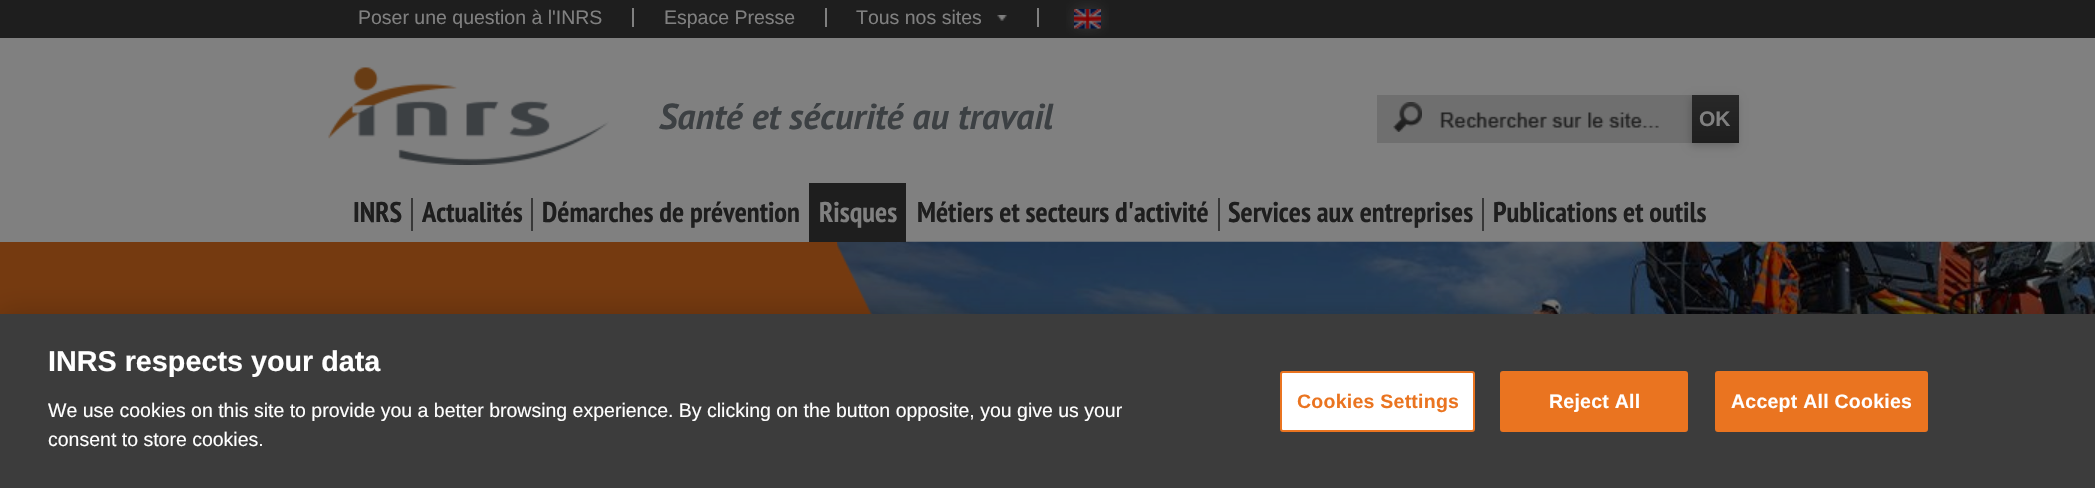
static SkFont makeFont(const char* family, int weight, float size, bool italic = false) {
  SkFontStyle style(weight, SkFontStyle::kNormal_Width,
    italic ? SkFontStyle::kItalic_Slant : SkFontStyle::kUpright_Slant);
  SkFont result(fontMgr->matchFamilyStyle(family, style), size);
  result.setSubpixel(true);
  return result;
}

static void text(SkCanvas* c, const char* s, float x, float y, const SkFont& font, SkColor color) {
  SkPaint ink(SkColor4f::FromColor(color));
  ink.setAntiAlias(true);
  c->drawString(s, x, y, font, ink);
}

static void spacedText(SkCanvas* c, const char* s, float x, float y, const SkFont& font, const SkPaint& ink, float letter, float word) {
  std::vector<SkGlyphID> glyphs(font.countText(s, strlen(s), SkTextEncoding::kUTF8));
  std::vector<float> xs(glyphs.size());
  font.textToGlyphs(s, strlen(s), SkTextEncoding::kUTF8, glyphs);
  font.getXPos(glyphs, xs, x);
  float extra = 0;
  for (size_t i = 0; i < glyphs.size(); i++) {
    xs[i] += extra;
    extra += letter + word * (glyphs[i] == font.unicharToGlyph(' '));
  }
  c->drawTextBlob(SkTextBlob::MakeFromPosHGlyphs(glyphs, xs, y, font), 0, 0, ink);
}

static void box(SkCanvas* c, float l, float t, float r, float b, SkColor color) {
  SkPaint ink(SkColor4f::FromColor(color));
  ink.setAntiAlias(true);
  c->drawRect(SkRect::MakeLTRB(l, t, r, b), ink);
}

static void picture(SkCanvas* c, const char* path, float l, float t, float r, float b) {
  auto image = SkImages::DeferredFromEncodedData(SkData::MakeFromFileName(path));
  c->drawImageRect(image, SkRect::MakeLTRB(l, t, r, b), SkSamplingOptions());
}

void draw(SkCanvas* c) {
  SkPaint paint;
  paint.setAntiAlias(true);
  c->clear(0xff808080);
  box(c, 0, 0, 2095, 38, 0xff1e1e1e);
  box(c, 632, 8, 634, 27, 0xff808080);
  SkFont face1 = makeFont("Liberation Sans", 400, 19.5f);
  text(c, "Poser une question à l'INRS", 358, 24, face1, 0xff808080);
  box(c, 825, 8, 827, 27, 0xff808080);
  text(c, "Espace Presse", 664, 24, face1, 0xff808080);
  box(c, 1037, 8, 1039, 27, 0xff808080);
  text(c, "Tous nos sites", 856, 24, face1, 0xff808080);
  picture(c, "img_01.png", 997, 15, 1007, 21);
  picture(c, "img_02.png", 1066, 0, 1109, 36);
  picture(c, "img_03.png", 1074, 9, 1101, 29);
  picture(c, "img_04.png", 328, 67, 609, 165);
  SkFont face2 = makeFont("PT Sans", 700, 36, true);
  text(c, "Santé et sécurité au travail", 659, 129, face2, 0xff3c4043);
  box(c, 1377, 95, 1692, 143, 0xff6f6f6f);
  picture(c, "img_05.png", 1393, 102, 1422, 132);
  picture(c, "img_06.png", 1440, 112, 1659, 128);
  paint.setColor(0x33000000);
  paint.setMaskFilter(SkMaskFilter::MakeBlur(kNormal_SkBlurStyle, 4));
  c->drawRect(SkRect::MakeLTRB(1691, 98, 1737, 146), paint);
  paint.setMaskFilter(nullptr);
  {
    const SkColor colors[] = {0xff282828, 0xff1e1e1e};
    const float stops[] = {0, 1};
    const SkPoint ends[] = {{1715, 95}, {1715, 143}};
    paint.setShader(SkGradientShader::MakeLinear(ends, colors, stops, 2, SkTileMode::kClamp));
    paint.setAlpha(255);
  }
  c->drawRect(SkRect::MakeLTRB(1692, 95, 1739, 143), paint);
  SkFont face3 = makeFont("Liberation Sans", 700, 21);
  text(c, "OK", 1699, 126, face3, 0xff808080);
  box(c, 411, 198, 413, 231, 0xff383838);
  SkFont face4 = makeFont("PT Sans Narrow", 700, 28.5f);
  text(c, "INRS", 353, 222, face4, 0xff1e1e1e);
  box(c, 531, 198, 533, 231, 0xff383838);
  text(c, "Actualités", 422, 222, face4, 0xff1e1e1e);
  text(c, "Démarches de prévention", 542, 222, face4, 0xff1e1e1e);
  picture(c, "img_07.png", 837, 241, 2095, 314);
  box(c, 809, 183, 906, 242, 0xff1e1e1e);
  text(c, "Risques", 819, 222, face4, 0xff808080);
  box(c, 1218, 198, 1220, 231, 0xff383838);
  text(c, "Métiers et secteurs d'activité", 917, 222, face4, 0xff1e1e1e);
  box(c, 1482, 198, 1484, 231, 0xff383838);
  text(c, "Services aux entreprises", 1228, 222, face4, 0xff1e1e1e);
  text(c, "Publications et outils", 1493, 222, face4, 0xff1e1e1e);
  box(c, 0, 242, 837, 314, 0xff753a10);
  picture(c, "img_08.png", 831, 242, 873, 314);
  paint.setShader(nullptr);
  paint.setColor(0x33000000);
  paint.setMaskFilter(SkMaskFilter::MakeBlur(kNormal_SkBlurStyle, 13.5f));
  c->drawRect(SkRect::MakeLTRB(0, 314, 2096, 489), paint);
  paint.setMaskFilter(nullptr);
  box(c, 0, 314, 2095, 488, 0xff3c3c3c);
  SkFont face5 = makeFont("Liberation Sans", 700, 28.75f);
  text(c, "INRS respects your data", 48, 371, face5, 0xffffffff);
  text(c, "We use cookies on this site to provide you a better browsing experience. By clicking on the button opposite, you give us your", 48, 417, face1, 0xffffffff);
  text(c, "consent to store cookies.", 48, 446, face1, 0xffffffff);
  paint.setColor(0xffffffff);
  c->drawRoundRect(SkRect::MakeLTRB(1281, 372, 1474, 431), 2, 2, paint);
  paint.setStyle(SkPaint::kStroke_Style);
  paint.setStrokeWidth(2);
  paint.setColor(0xffea7420);
  c->drawRoundRect(SkRect::MakeLTRB(1281, 372, 1474, 431), 2, 2, paint);
  SkFont face6 = makeFont("Liberation Sans", 700, 19.5f);
  paint.setStyle(SkPaint::kFill_Style);
  spacedText(c, "Cookies Settings", 1297, 408, face6, paint, 0.25f, 0);
  c->drawRoundRect(SkRect::MakeLTRB(1501, 372, 1687, 431), 2, 2, paint);
  paint.setStyle(SkPaint::kStroke_Style);
  c->drawRoundRect(SkRect::MakeLTRB(1501, 372, 1687, 431), 2, 2, paint);
  paint.setStyle(SkPaint::kFill_Style);
  paint.setColor(0xffffffff);
  spacedText(c, "Reject All", 1549, 408, face6, paint, 0.25f, 0);
  paint.setColor(0xffea7420);
  c->drawRoundRect(SkRect::MakeLTRB(1716, 372, 1927, 431), 2, 2, paint);
  paint.setStyle(SkPaint::kStroke_Style);
  c->drawRoundRect(SkRect::MakeLTRB(1716, 372, 1927, 431), 2, 2, paint);
  paint.setStyle(SkPaint::kFill_Style);
  paint.setColor(0xffffffff);
  spacedText(c, "Accept All Cookies", 1731, 408, face6, paint, 0.25f, 0);
}
